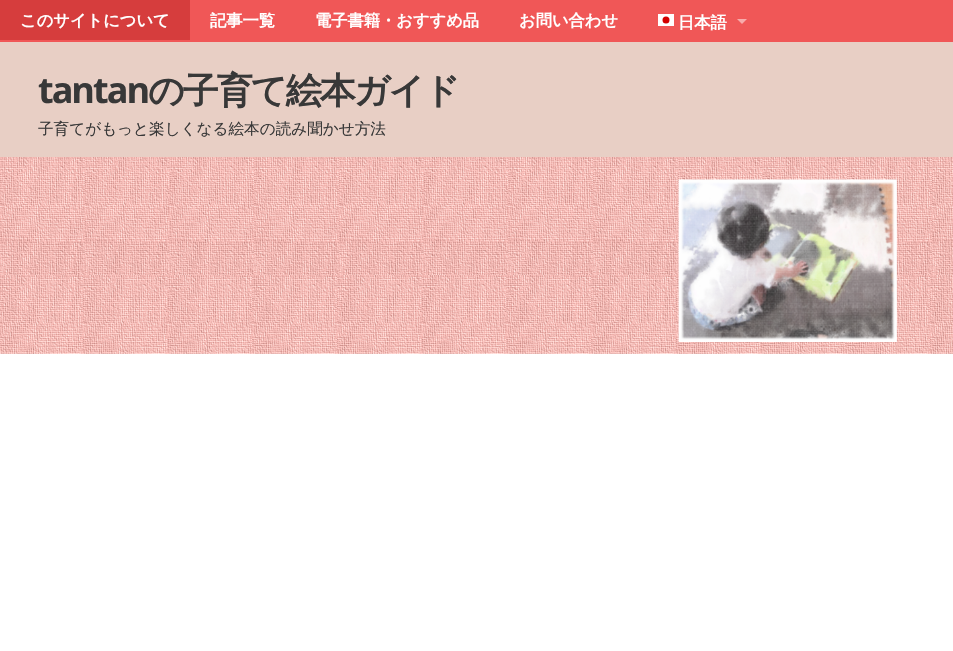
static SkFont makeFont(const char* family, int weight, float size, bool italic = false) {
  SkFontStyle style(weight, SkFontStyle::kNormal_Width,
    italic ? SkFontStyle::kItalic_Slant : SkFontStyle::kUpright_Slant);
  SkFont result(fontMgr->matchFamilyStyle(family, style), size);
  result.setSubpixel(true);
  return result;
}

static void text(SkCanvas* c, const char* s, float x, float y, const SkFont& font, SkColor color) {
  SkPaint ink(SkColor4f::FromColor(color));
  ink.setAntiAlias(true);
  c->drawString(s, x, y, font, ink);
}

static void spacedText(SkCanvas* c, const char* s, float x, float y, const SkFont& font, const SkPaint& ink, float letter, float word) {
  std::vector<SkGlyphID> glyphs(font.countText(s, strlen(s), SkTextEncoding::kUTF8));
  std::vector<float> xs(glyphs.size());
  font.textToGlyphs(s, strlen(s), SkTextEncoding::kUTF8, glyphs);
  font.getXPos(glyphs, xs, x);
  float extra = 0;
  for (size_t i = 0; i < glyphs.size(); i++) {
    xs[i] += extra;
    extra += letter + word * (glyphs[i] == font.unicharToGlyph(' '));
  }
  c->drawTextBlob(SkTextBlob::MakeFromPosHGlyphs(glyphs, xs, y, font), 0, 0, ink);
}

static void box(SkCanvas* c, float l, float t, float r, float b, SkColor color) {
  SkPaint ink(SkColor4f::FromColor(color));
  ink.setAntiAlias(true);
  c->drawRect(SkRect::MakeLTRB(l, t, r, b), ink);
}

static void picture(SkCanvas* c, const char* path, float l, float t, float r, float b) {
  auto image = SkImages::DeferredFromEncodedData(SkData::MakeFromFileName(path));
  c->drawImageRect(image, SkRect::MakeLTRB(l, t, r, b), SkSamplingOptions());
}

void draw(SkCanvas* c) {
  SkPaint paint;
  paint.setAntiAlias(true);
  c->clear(0xffffffff);
  box(c, 0, 0, 953, 42, 0xfff05757);
  box(c, 0, 0, 190, 40, 0xffd63d3d);
  SkFont face1 = makeFont("WenQuanYi Zen Hei", 700, 16.25f);
  text(c, "このサイトについて", 20, 26, face1, 0xffffffff);
  text(c, "記事一覧", 210, 26, face1, 0xffffffff);
  text(c, "電子書籍・おすすめ品", 315, 26, face1, 0xffffffff);
  text(c, "お問い合わせ", 519, 26, face1, 0xffffffff);
  box(c, 658, 14, 674, 26, 0xffffffff);
  text(c, "日本語", 678, 28, face1, 0xffffffff);
  paint.setColor(0xffd30000);
  c->drawCircle(666, 20, 3.5f, paint);
  paint.setColor(0xfff8abab);
  c->drawPath(SkPathBuilder().moveTo(737, 19).lineTo(747, 19).lineTo(742, 24).close().detach(), paint);
  box(c, 0, 42, 953, 157, 0xffe8cfc5);
  SkFont face2 = makeFont("Open Sans", 700, 36);
  paint.setColor(0xff383838);
  spacedText(c, "tantan", 38, 103, face2, paint, -2, 0);
  SkFont face3 = makeFont("WenQuanYi Zen Hei", 700, 36);
  spacedText(c, "の子育て絵本ガイド", 148, 103, face3, paint, -2, 0);
  SkFont face4 = makeFont("WenQuanYi Zen Hei", 500, 15.6f);
  text(c, "子育てがもっと楽しくなる絵本の読み聞かせ方法", 38, 134, face4, 0xff383838);
  picture(c, "img_01.png", 0, 157, 953, 355);
}
